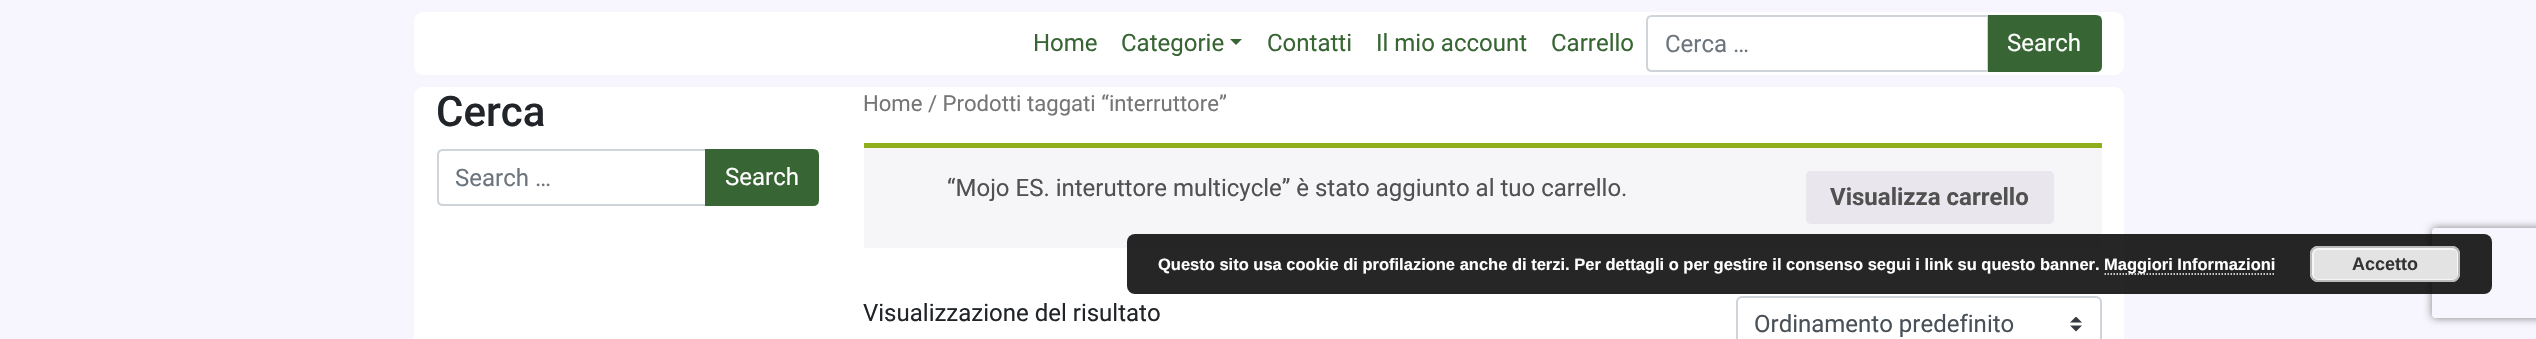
static SkFont makeFont(const char* family, int weight, float size, bool italic = false) {
  SkFontStyle style(weight, SkFontStyle::kNormal_Width,
    italic ? SkFontStyle::kItalic_Slant : SkFontStyle::kUpright_Slant);
  SkFont result(fontMgr->matchFamilyStyle(family, style), size);
  result.setSubpixel(true);
  return result;
}

static void text(SkCanvas* c, const char* s, float x, float y, const SkFont& font, SkColor color) {
  SkPaint ink(SkColor4f::FromColor(color));
  ink.setAntiAlias(true);
  c->drawString(s, x, y, font, ink);
}

static void box(SkCanvas* c, float l, float t, float r, float b, SkColor color) {
  SkPaint ink(SkColor4f::FromColor(color));
  ink.setAntiAlias(true);
  c->drawRect(SkRect::MakeLTRB(l, t, r, b), ink);
}

static void roundBox(SkCanvas* c, float l, float t, float r, float b, float radius, SkColor color) {
  SkPaint ink(SkColor4f::FromColor(color));
  ink.setAntiAlias(true);
  c->drawRoundRect(SkRect::MakeLTRB(l, t, r, b), radius, radius, ink);
}

static void picture(SkCanvas* c, const char* path, float l, float t, float r, float b) {
  auto image = SkImages::DeferredFromEncodedData(SkData::MakeFromFileName(path));
  c->drawImageRect(image, SkRect::MakeLTRB(l, t, r, b), SkSamplingOptions());
}

void draw(SkCanvas* c) {
  SkPaint paint;
  paint.setAntiAlias(true);
  c->clear(0xfff7f6fe);
  roundBox(c, 414, 12, 2124, 75, 9, 0xffffffff);
  SkFont face1 = makeFont("Roboto", 400, 24);
  text(c, "Home", 1033, 51, face1, 0xff376533);
  text(c, "Categorie", 1121, 51, face1, 0xff376533);
  paint.setColor(0xff376533);
  c->drawPath(SkPathBuilder().moveTo(1230, 39).lineTo(1242, 39).lineTo(1236, 45).close().detach(), paint);
  text(c, "Contatti", 1267, 51, face1, 0xff376533);
  text(c, "Il mio account", 1376, 51, face1, 0xff376533);
  text(c, "Carrello", 1551, 51, face1, 0xff376533);
  paint.setStyle(SkPaint::kStroke_Style);
  paint.setStrokeWidth(2);
  paint.setColor(0xffced4da);
  c->drawPath(SkPathBuilder().moveTo(1652, 16).lineTo(1988, 16).lineTo(1988, 71).lineTo(1652, 71).cubicTo(1649, 71, 1647, 69, 1647, 66).lineTo(1647, 21).cubicTo(1647, 18, 1649, 16, 1652, 16).close().detach(), paint);
  text(c, "Cerca …", 1665, 52, face1, 0xff6c757d);
  paint.setStyle(SkPaint::kFill_Style);
  paint.setColor(0xff376533);
  c->drawPath(SkPathBuilder().moveTo(1989, 16).lineTo(2096, 16).cubicTo(2099, 16, 2101, 18, 2101, 21).lineTo(2101, 66).cubicTo(2101, 69, 2099, 71, 2096, 71).lineTo(1989, 71).close().detach(), paint);
  paint.setStyle(SkPaint::kStroke_Style);
  c->drawPath(SkPathBuilder().moveTo(1989, 16).lineTo(2096, 16).cubicTo(2099, 16, 2101, 18, 2101, 21).lineTo(2101, 66).cubicTo(2101, 69, 2099, 71, 2096, 71).lineTo(1989, 71).close().detach(), paint);
  text(c, "Search", 2007, 51, face1, 0xffffffff);
  roundBox(c, 414, 87, 2124, 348, 9, 0xffffffff);
  SkFont face2 = makeFont("Roboto", 500, 42);
  text(c, "Cerca", 436, 126, face2, 0xff212529);
  paint.setColor(0xffced4da);
  c->drawPath(SkPathBuilder().moveTo(443, 150).lineTo(706, 150).lineTo(706, 205).lineTo(443, 205).cubicTo(440, 205, 438, 203, 438, 200).lineTo(438, 155).cubicTo(438, 152, 440, 150, 443, 150).close().detach(), paint);
  text(c, "Search …", 455, 186, face1, 0xff6c757d);
  paint.setStyle(SkPaint::kFill_Style);
  paint.setColor(0xff376533);
  c->drawPath(SkPathBuilder().moveTo(706, 150).lineTo(813, 150).cubicTo(816, 150, 818, 152, 818, 155).lineTo(818, 200).cubicTo(818, 203, 816, 205, 813, 205).lineTo(706, 205).close().detach(), paint);
  paint.setStyle(SkPaint::kStroke_Style);
  c->drawPath(SkPathBuilder().moveTo(706, 150).lineTo(813, 150).cubicTo(816, 150, 818, 152, 818, 155).lineTo(818, 200).cubicTo(818, 203, 816, 205, 813, 205).lineTo(706, 205).close().detach(), paint);
  text(c, "Search", 725, 185, face1, 0xffffffff);
  SkFont face3 = makeFont("Roboto", 400, 22.1f);
  text(c, "Home / Prodotti taggati “interruttore”", 863, 111, face3, 0xff767676);
  box(c, 864, 148, 2102, 248, 0xfff6f5f8);
  box(c, 864, 143, 2102, 148, 0xff8fae1b);
  text(c, "“Mojo ES. interuttore multicycle” è stato aggiunto al tuo carrello.", 947, 196, face1, 0xff515151);
  roundBox(c, 1806, 171, 2054, 224, 5, 0xffe9e6ed);
  SkFont face4 = makeFont("Roboto", 700, 24);
  text(c, "Visualizza carrello", 1830, 205, face4, 0xff515151);
  text(c, "Visualizzazione del risultato", 863, 321, face1, 0xff212529);
  picture(c, "img_01.png", 2070, 317, 2082, 332);
  paint.setColor(0xffced4da);
  c->drawRoundRect(SkRect::MakeLTRB(1737, 297, 2101, 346), 5, 5, paint);
  text(c, "Ordinamento predefinito", 1754, 332, face1, 0xff495057);
  c->save();
  c->clipPath(SkPathBuilder(SkPathFillType::kEvenOdd).moveTo(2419, 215).lineTo(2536, 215).lineTo(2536, 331).lineTo(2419, 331).close().moveTo(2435, 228).lineTo(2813, 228).cubicTo(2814.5f, 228, 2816, 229.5f, 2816, 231).lineTo(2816, 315).cubicTo(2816, 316.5f, 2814.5f, 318, 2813, 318).lineTo(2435, 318).cubicTo(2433.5f, 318, 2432, 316.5f, 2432, 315).lineTo(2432, 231).cubicTo(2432, 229.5f, 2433.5f, 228, 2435, 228).close().detach(), true);
  paint.setStyle(SkPaint::kFill_Style);
  paint.setColor(0xff808080);
  paint.setMaskFilter(SkMaskFilter::MakeBlur(kNormal_SkBlurStyle, 4));
  c->drawRoundRect(SkRect::MakeLTRB(2432, 228, 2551, 318), 3, 3, paint);
  paint.setMaskFilter(nullptr);
  c->restore();
  roundBox(c, 1127, 234, 2492, 294, 8, 0xd9000000);
  SkFont face5 = makeFont("Liberation Sans", 700, 16.5f);
  text(c, "Questo sito usa cookie di profilazione anche di terzi. Per dettagli o per gestire il consenso segui i link su questo banner.", 1158, 270, face5, 0xffffffff);
  paint.setStyle(SkPaint::kStroke_Style);
  paint.setStrokeWidth(1.5f);
  paint.setColor(0xffffffff);
  paint.setPathEffect(SkDashPathEffect::Make({{1.5f, 1.5f}}, 0));
  c->drawPath(SkPathBuilder().moveTo(2104.5f, 274).lineTo(2275.5f, 274).detach(), paint);
  paint.setPathEffect(nullptr);
  text(c, "Maggiori Informazioni", 2104, 270, face5, 0xffffffff);
  roundBox(c, 2310, 246, 2460, 282, 8, 0xffe3e3e3);
  paint.setStrokeWidth(2);
  paint.setColor(0xfff6f6f6);
  c->drawRoundRect(SkRect::MakeLTRB(2313, 249, 2458, 280), 5, 5, paint);
  paint.setColor(0xffbbbbbb);
  c->drawRoundRect(SkRect::MakeLTRB(2311, 247, 2459, 281), 7, 7, paint);
  SkFont face6 = makeFont("Liberation Sans", 700, 18);
  text(c, "Accetto", 2352, 270, face6, 0xff333333);
}
